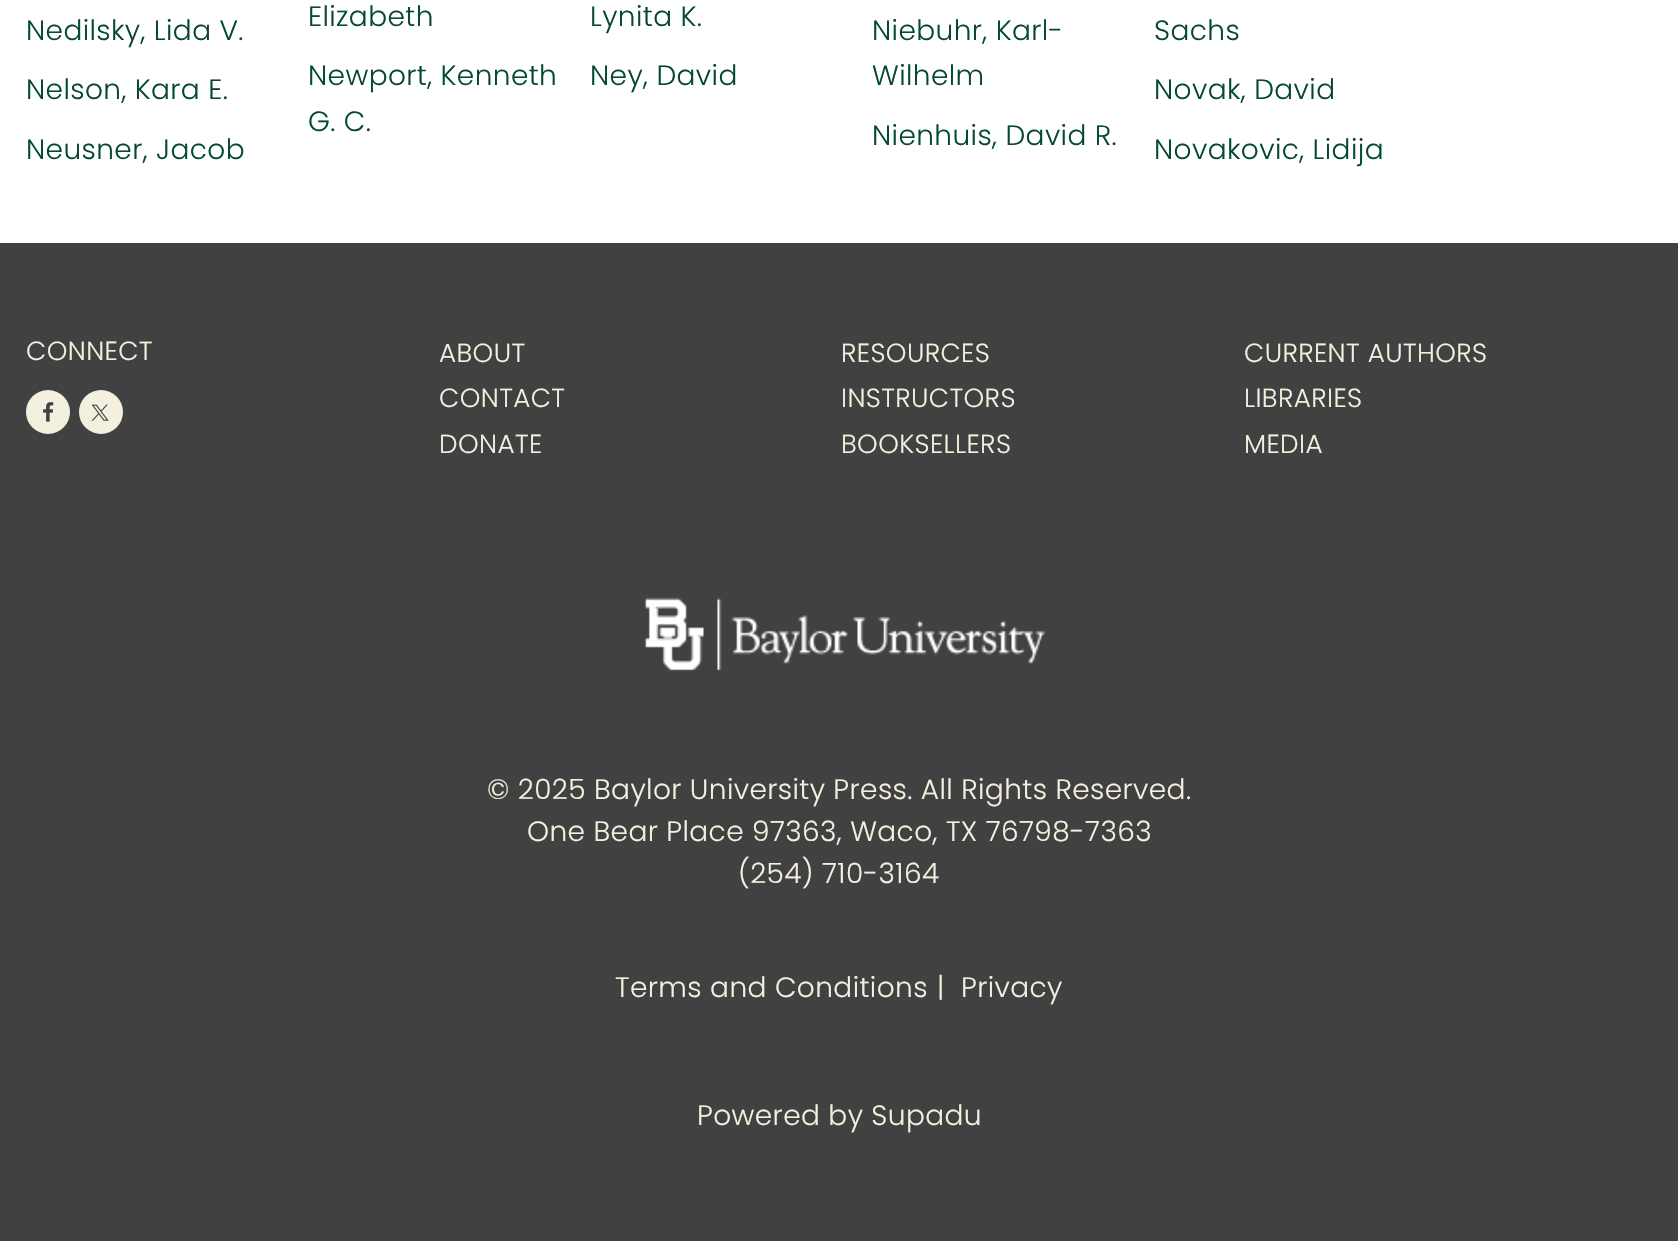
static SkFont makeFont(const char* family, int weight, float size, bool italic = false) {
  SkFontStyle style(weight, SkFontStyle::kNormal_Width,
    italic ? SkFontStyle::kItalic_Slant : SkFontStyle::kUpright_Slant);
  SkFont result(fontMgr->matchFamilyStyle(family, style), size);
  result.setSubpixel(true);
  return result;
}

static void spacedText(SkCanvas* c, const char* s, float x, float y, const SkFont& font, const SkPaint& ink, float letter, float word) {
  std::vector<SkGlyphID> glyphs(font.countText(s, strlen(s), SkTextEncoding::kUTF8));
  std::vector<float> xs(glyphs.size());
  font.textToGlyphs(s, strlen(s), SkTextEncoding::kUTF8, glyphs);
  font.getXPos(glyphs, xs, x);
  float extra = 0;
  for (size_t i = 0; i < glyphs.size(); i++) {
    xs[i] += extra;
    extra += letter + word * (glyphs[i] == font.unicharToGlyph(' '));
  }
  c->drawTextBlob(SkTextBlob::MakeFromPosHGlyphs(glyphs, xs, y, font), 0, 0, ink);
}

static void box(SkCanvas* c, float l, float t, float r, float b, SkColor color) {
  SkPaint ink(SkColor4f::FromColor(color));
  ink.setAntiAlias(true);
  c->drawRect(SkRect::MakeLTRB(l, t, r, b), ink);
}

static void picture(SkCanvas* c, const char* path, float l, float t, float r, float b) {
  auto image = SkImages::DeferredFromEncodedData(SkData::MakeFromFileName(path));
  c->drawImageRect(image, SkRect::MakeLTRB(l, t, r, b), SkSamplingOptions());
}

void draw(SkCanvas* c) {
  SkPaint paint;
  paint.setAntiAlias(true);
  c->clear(0xffffffff);
  SkFont face1 = makeFont("Poppins", 300, 28);
  paint.setColor(0xff054833);
  spacedText(c, "Nedilsky, Lida V.", 26, 40, face1, paint, 0.4f, 0);
  spacedText(c, "Elizabeth", 308, 26, face1, paint, 0.4f, 0);
  spacedText(c, "Lynita K.", 590, 26, face1, paint, 0.4f, 0);
  spacedText(c, "Niebuhr, Karl-", 872, 40, face1, paint, 0.4f, 0);
  spacedText(c, "Wilhelm", 872, 85, face1, paint, 0.4f, 0);
  spacedText(c, "Sachs", 1154, 40, face1, paint, 0.4f, 0);
  spacedText(c, "Nelson, Kara E.", 26, 99, face1, paint, 0.4f, 0);
  spacedText(c, "Newport, Kenneth", 308, 85, face1, paint, 0.4f, 0);
  spacedText(c, "G. C.", 308, 131, face1, paint, 0.4f, 0);
  spacedText(c, "Ney, David", 590, 85, face1, paint, 0.4f, 0);
  spacedText(c, "Novak, David", 1154, 99, face1, paint, 0.4f, 0);
  spacedText(c, "Neusner, Jacob", 26, 159, face1, paint, 0.4f, 0);
  spacedText(c, "Nienhuis, David R.", 872, 145, face1, paint, 0.4f, 0);
  spacedText(c, "Novakovic, Lidija", 1154, 159, face1, paint, 0.4f, 0);
  box(c, 0, 243, 1678, 1241, 0xff414141);
  SkFont face2 = makeFont("Poppins", 300, 26.25f);
  paint.setColor(0xfff4f0df);
  spacedText(c, "CONNECT", 26, 360, face2, paint, 0.4f, 0);
  c->drawCircle(48, 412, 22, paint);
  picture(c, "img_01.png", 43, 402, 54, 422);
  c->drawCircle(101, 412, 22, paint);
  picture(c, "img_02.png", 91, 404, 109, 421);
  spacedText(c, "ABOUT", 439, 362, face2, paint, 0.4f, 0);
  spacedText(c, "CONTACT", 439, 407, face2, paint, 0.4f, 0);
  spacedText(c, "DONATE", 439, 453, face2, paint, 0.4f, 0);
  spacedText(c, "RESOURCES", 841, 362, face2, paint, 0.4f, 0);
  spacedText(c, "INSTRUCTORS", 841, 407, face2, paint, 0.4f, 0);
  spacedText(c, "BOOKSELLERS", 841, 453, face2, paint, 0.4f, 0);
  spacedText(c, "CURRENT AUTHORS", 1244, 362, face2, paint, 0.4f, 0);
  spacedText(c, "LIBRARIES", 1244, 407, face2, paint, 0.4f, 0);
  spacedText(c, "MEDIA", 1244, 453, face2, paint, 0.4f, 0);
  picture(c, "img_03.png", 645, 597, 1046, 671);
  spacedText(c, "© 2025 Baylor University Press. All Rights Reserved.", 487, 799, face1, paint, 0.4f, 0);
  spacedText(c, "One Bear Place 97363, Waco, TX 76798-7363", 527, 841, face1, paint, 0.4f, 0);
  spacedText(c, "(254) 710-3164", 738, 883, face1, paint, 0.4f, 0);
  spacedText(c, "Terms and Conditions", 615, 997, face1, paint, 0.4f, 0);
  spacedText(c, "|", 937, 997, face1, paint, 0.4f, 0);
  spacedText(c, "Privacy", 961, 997, face1, paint, 0.4f, 0);
  spacedText(c, "Powered by Supadu", 697, 1125, face1, paint, 0.4f, 0);
}
